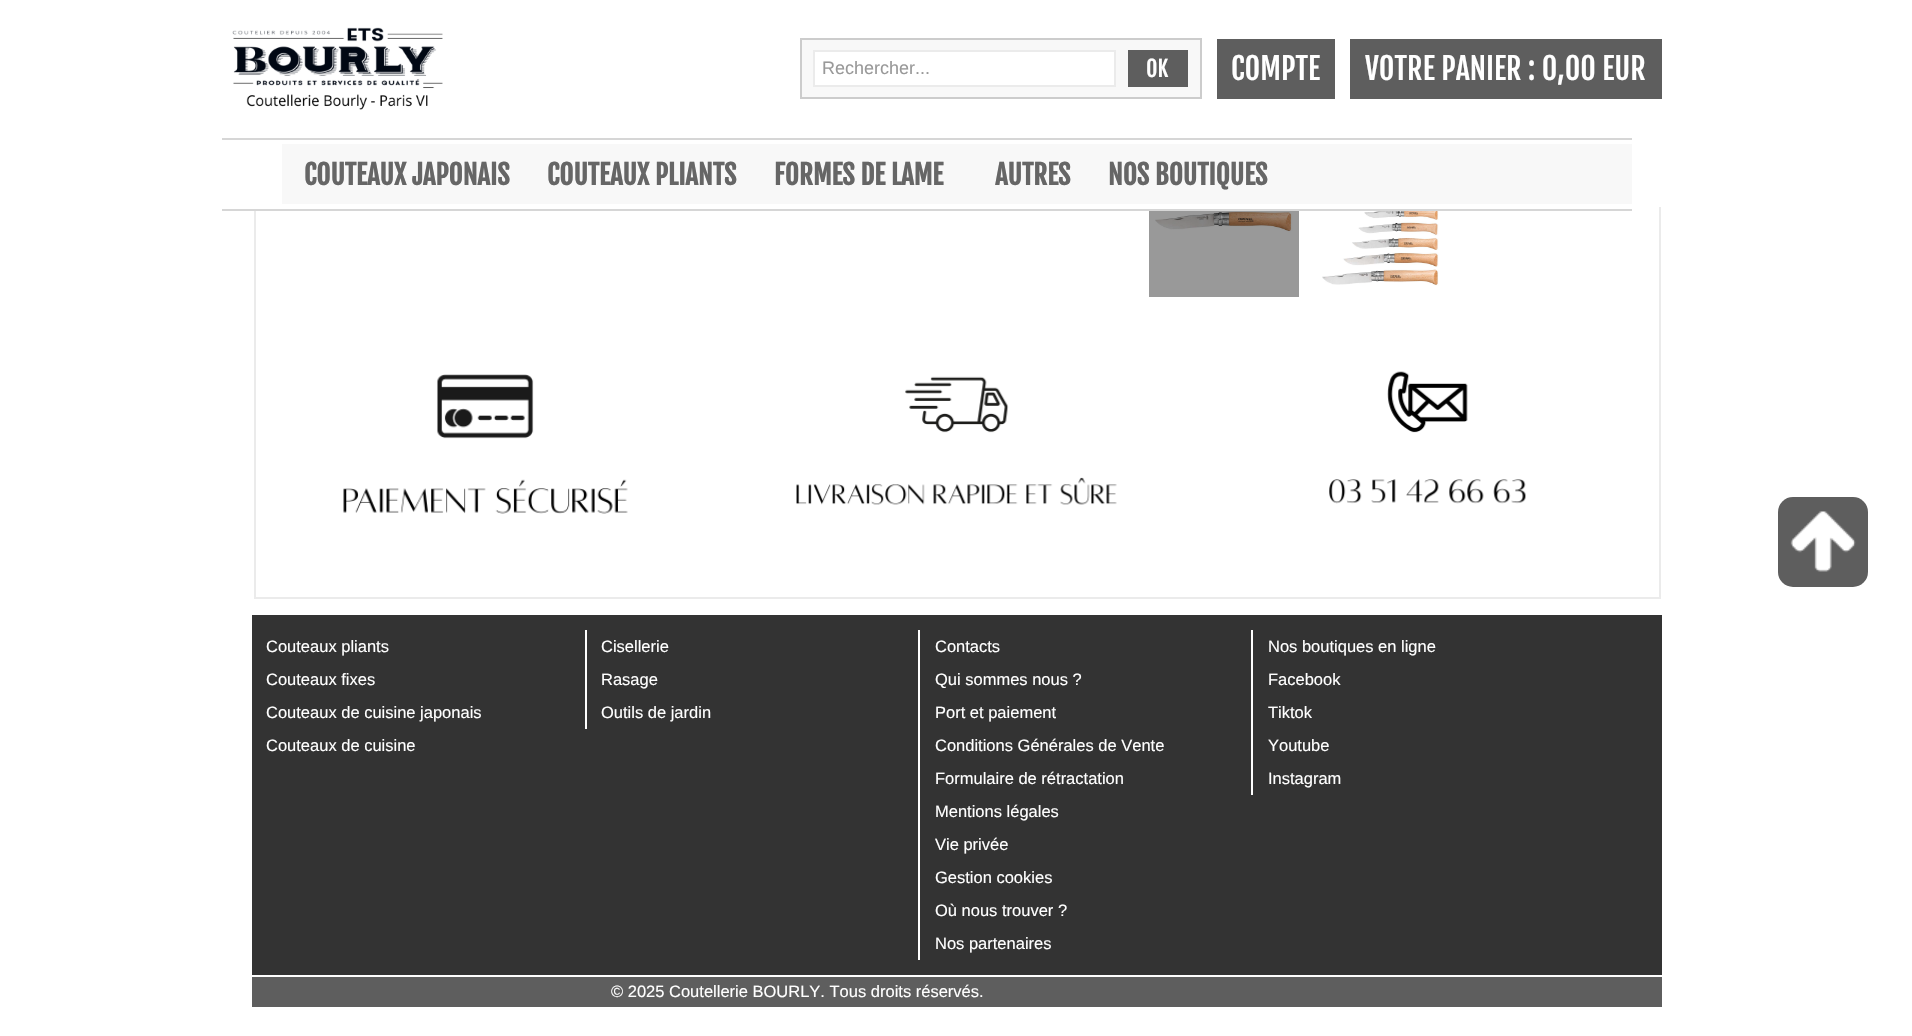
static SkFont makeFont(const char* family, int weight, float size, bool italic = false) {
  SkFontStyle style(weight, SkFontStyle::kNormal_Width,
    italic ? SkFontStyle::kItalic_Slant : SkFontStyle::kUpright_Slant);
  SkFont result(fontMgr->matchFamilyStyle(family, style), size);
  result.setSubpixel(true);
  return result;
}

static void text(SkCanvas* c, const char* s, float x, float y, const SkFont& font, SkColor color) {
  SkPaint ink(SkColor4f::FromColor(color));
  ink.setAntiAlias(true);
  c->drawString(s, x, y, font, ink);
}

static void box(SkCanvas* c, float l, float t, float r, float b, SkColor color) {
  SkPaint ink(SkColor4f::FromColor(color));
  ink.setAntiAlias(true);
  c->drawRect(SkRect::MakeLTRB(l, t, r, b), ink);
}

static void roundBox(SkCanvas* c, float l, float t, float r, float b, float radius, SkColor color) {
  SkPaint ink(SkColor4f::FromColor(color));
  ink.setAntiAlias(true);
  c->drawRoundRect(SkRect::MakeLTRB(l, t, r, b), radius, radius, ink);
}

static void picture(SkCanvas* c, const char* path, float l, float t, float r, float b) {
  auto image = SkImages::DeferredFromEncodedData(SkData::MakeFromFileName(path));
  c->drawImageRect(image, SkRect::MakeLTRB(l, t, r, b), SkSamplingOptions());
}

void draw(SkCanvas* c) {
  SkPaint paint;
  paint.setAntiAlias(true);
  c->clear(0xffffffff);
  paint.setStyle(SkPaint::kStroke_Style);
  paint.setStrokeWidth(2);
  paint.setColor(0xffebebeb);
  c->drawRect(SkRect::MakeLTRB(255, -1, 1660, 598), paint);
  picture(c, "img_01.png", 1149, 211, 1299, 297);
  picture(c, "img_02.png", 1322, 211, 1439, 286);
  picture(c, "img_03.png", 343, 374, 628, 514);
  picture(c, "img_04.png", 796, 376, 1117, 505);
  picture(c, "img_05.png", 1329, 371, 1526, 504);
  box(c, 254, 0, 1661, 207, 0xffffffff);
  picture(c, "img_06.png", 232, 27, 443, 110);
  paint.setStyle(SkPaint::kFill_Style);
  paint.setColor(0xfff8f8f8);
  c->drawRect(SkRect::MakeLTRB(801, 39, 1201, 98), paint);
  paint.setStyle(SkPaint::kStroke_Style);
  paint.setColor(0xffcccccc);
  c->drawRect(SkRect::MakeLTRB(801, 39, 1201, 98), paint);
  paint.setStyle(SkPaint::kFill_Style);
  paint.setColor(0xffffffff);
  c->drawRect(SkRect::MakeLTRB(814, 51, 1115, 86), paint);
  paint.setStyle(SkPaint::kStroke_Style);
  paint.setColor(0xffebebeb);
  c->drawRect(SkRect::MakeLTRB(814, 51, 1115, 86), paint);
  SkFont face1 = makeFont("Liberation Sans", 400, 18);
  text(c, "Rechercher...", 822, 74, face1, 0xff999999);
  box(c, 1128, 50, 1188, 87, 0xff5e5e5e);
  SkFont face2 = makeFont("Fjalla One", 400, 22);
  text(c, "OK", 1146, 77, face2, 0xffffffff);
  box(c, 1217, 39, 1335, 99, 0xff5e5e5e);
  SkFont face3 = makeFont("Fjalla One", 400, 30);
  text(c, "COMPTE", 1231, 80, face3, 0xffffffff);
  box(c, 1350, 39, 1662, 99, 0xff5e5e5e);
  text(c, "VOTRE PANIER : 0,00 EUR", 1365, 80, face3, 0xffffffff);
  box(c, 254, 207, 256, 209, 0xffffffff);
  box(c, 222, 138, 1632, 140, 0xffd6d6d6);
  box(c, 222, 209, 1632, 211, 0xffd6d6d6);
  box(c, 282, 144, 1632, 204, 0xfff8f8f8);
  SkFont face4 = makeFont("Fjalla One", 700, 27);
  text(c, "COUTEAUX JAPONAIS", 304, 185, face4, 0xff666666);
  text(c, "COUTEAUX PLIANTS", 547, 185, face4, 0xff666666);
  text(c, "FORMES DE LAME", 774, 185, face4, 0xff666666);
  text(c, "AUTRES", 995, 185, face4, 0xff666666);
  text(c, "NOS BOUTIQUES", 1108, 185, face4, 0xff666666);
  roundBox(c, 1778, 497, 1868, 587, 15, 0xff5e5e5e);
  picture(c, "img_07.png", 1790, 511, 1856, 572);
  box(c, 252, 977, 1662, 1007, 0xff5e5e5e);
  box(c, 252, 615, 1662, 975, 0xff333333);
  SkFont face5 = makeFont("Liberation Sans", 400, 16.5f);
  text(c, "Couteaux pliants", 266, 652, face5, 0xffffffff);
  text(c, "Couteaux fixes", 266, 685, face5, 0xffffffff);
  text(c, "Couteaux de cuisine japonais", 266, 718, face5, 0xffffffff);
  text(c, "Couteaux de cuisine", 266, 751, face5, 0xffffffff);
  box(c, 585, 630, 587, 729, 0xffffffff);
  text(c, "Cisellerie", 601, 652, face5, 0xffffffff);
  text(c, "Rasage", 601, 685, face5, 0xffffffff);
  text(c, "Outils de jardin", 601, 718, face5, 0xffffffff);
  box(c, 918, 630, 920, 960, 0xffffffff);
  text(c, "Contacts", 935, 652, face5, 0xffffffff);
  text(c, "Qui sommes nous ?", 935, 685, face5, 0xffffffff);
  text(c, "Port et paiement", 935, 718, face5, 0xffffffff);
  text(c, "Conditions Générales de Vente", 935, 751, face5, 0xffffffff);
  text(c, "Formulaire de rétractation", 935, 784, face5, 0xffffffff);
  text(c, "Mentions légales", 935, 817, face5, 0xffffffff);
  text(c, "Vie privée", 935, 850, face5, 0xffffffff);
  text(c, "Gestion cookies", 935, 883, face5, 0xffffffff);
  text(c, "Où nous trouver ?", 935, 916, face5, 0xffffffff);
  text(c, "Nos partenaires", 935, 949, face5, 0xffffffff);
  box(c, 1251, 630, 1253, 795, 0xffffffff);
  text(c, "Nos boutiques en ligne", 1268, 652, face5, 0xffffffff);
  text(c, "Facebook", 1268, 685, face5, 0xffffffff);
  text(c, "Tiktok", 1268, 718, face5, 0xffffffff);
  text(c, "Youtube", 1268, 751, face5, 0xffffffff);
  text(c, "Instagram", 1268, 784, face5, 0xffffffff);
  text(c, "© 2025 Coutellerie BOURLY. Tous droits réservés.", 611, 997, face5, 0xffffffff);
}
